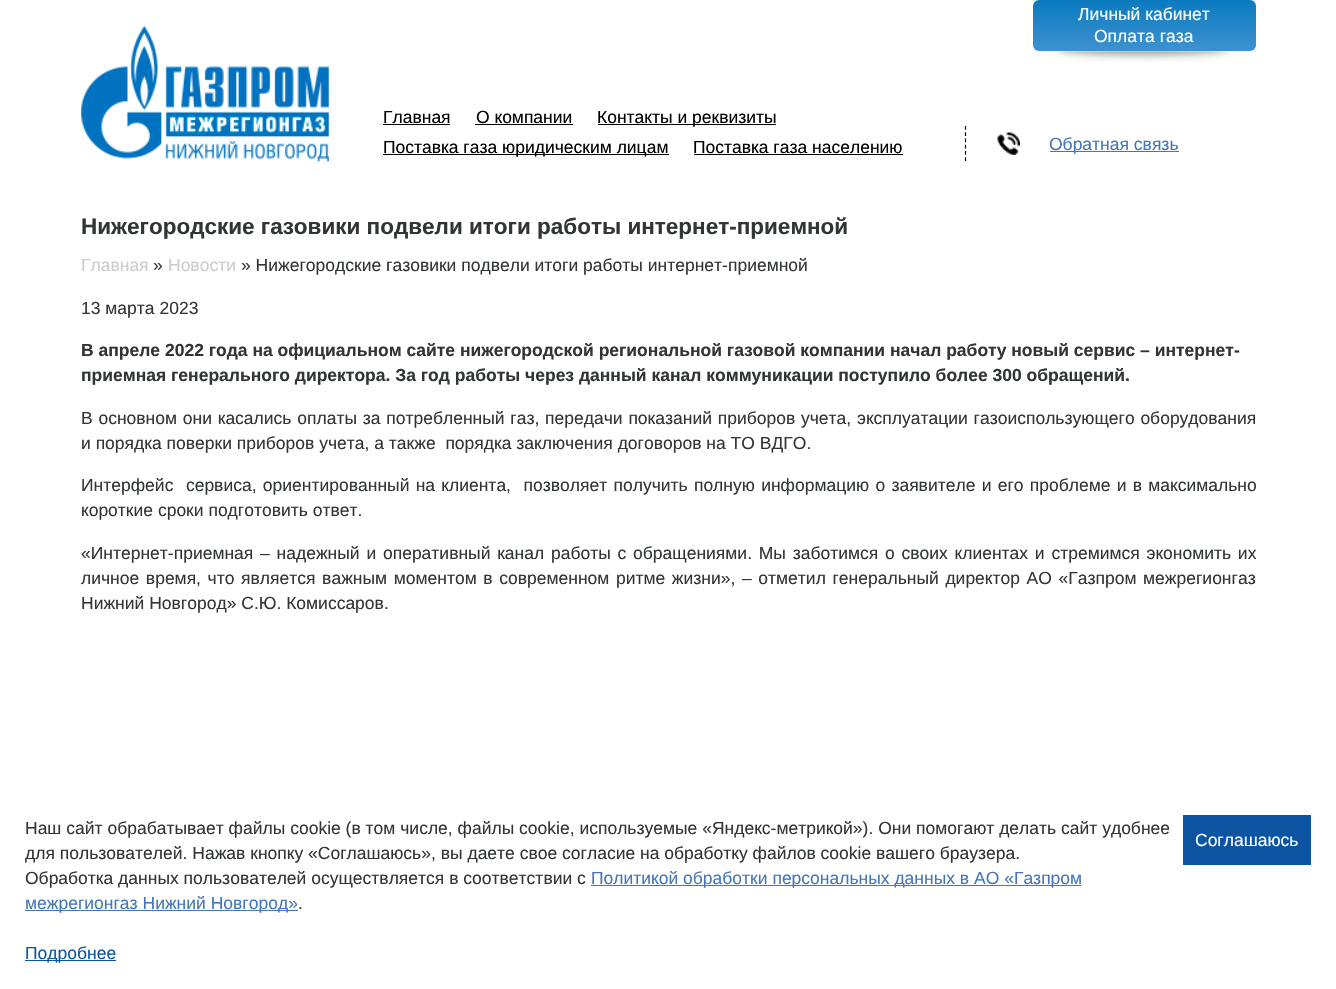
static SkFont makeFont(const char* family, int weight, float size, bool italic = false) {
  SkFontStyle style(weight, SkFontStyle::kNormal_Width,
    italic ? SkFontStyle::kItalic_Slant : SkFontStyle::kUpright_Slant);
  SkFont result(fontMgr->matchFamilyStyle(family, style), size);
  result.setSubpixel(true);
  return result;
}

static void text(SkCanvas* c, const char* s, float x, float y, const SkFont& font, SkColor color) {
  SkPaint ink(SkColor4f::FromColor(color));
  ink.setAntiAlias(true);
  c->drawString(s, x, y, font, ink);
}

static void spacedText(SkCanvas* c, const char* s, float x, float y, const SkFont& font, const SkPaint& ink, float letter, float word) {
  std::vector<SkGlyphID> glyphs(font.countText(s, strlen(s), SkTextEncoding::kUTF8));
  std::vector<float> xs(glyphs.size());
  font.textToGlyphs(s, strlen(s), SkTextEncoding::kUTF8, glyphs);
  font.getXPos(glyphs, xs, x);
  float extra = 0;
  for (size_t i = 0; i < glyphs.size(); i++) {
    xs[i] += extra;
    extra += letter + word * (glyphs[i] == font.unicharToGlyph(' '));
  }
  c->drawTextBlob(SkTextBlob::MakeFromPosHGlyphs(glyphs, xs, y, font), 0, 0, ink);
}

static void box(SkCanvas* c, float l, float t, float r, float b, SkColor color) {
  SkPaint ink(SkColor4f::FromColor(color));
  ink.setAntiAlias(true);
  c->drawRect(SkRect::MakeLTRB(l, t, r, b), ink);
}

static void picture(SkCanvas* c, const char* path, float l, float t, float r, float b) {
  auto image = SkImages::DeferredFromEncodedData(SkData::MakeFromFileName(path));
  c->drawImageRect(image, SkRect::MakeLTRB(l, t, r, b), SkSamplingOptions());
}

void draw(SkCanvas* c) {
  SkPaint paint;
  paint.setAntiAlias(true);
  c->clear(0xffffffff);
  picture(c, "img_01.png", 81, 26, 329, 162);
  SkFont face1 = makeFont("Liberation Sans", 400, 17.5f);
  text(c, "Главная", 383, 123, face1, 0xff000000);
  box(c, 383, 124, 450, 125, 0xff000000);
  text(c, "О компании", 476, 123, face1, 0xff000000);
  box(c, 475, 124, 573, 125, 0xff000000);
  box(c, 598, 124, 776, 125, 0xff000000);
  text(c, "Контакты и реквизиты", 597, 123, face1, 0xff000000);
  box(c, 383, 154, 669, 155, 0xff000000);
  text(c, "Поставка газа юридическим лицам", 383, 153, face1, 0xff000000);
  text(c, "Поставка газа населению", 693, 153, face1, 0xff000000);
  box(c, 694, 154, 903, 155, 0xff000000);
  {
    const SkColor colors[] = {0xff3d92d0, 0xff0a7abf};
    const float stops[] = {0, 1};
    const SkPoint ends[] = {{1144, 51}, {1144, 0}};
    paint.setShader(SkGradientShader::MakeLinear(ends, colors, stops, 2, SkTileMode::kClamp));
    paint.setAlpha(255);
  }
  c->drawRoundRect(SkRect::MakeLTRB(1033, 0, 1256, 51), 6, 6, paint);
  text(c, "Личный кабинет", 1078, 20, face1, 0xffffffff);
  text(c, "Оплата газа", 1094, 42, face1, 0xffffffff);
  picture(c, "img_02.png", 1054, 51, 1231, 62);
  paint.setStyle(SkPaint::kStroke_Style);
  paint.setStrokeWidth(1.2f);
  paint.setShader(nullptr);
  paint.setColor(0xff000000);
  paint.setPathEffect(SkDashPathEffect::Make({{3.75f, 2.5f}}, 0));
  c->drawPath(SkPathBuilder().moveTo(965.5f, 126).lineTo(965.5f, 161).detach(), paint);
  paint.setPathEffect(nullptr);
  picture(c, "img_03.png", 997, 132, 1020, 155);
  box(c, 1050, 151, 1179, 152, 0xff4376ba);
  text(c, "Обратная связь", 1049, 150, face1, 0xff4376ba);
  SkFont face2 = makeFont("Liberation Sans", 700, 22.5f);
  text(c, "Нижегородские газовики подвели итоги работы интернет-приемной", 81, 234, face2, 0xff313534);
  text(c, "Главная", 81, 271, face1, 0xffcccccc);
  text(c, "»", 153, 271, face1, 0xff313534);
  text(c, "Новости", 168, 271, face1, 0xffcccccc);
  text(c, "» Нижегородские газовики подвели итоги работы интернет-приемной", 241, 271, face1, 0xff313534);
  text(c, "13 марта 2023", 81, 314, face1, 0xff313534);
  SkFont face3 = makeFont("Liberation Sans", 700, 17.5f);
  text(c, "В апреле 2022 года на официальном сайте нижегородской региональной газовой компании начал работу новый сервис – интернет-", 81, 356, face3, 0xff313534);
  text(c, "приемная генерального директора. За год работы через данный канал коммуникации поступило более 300 обращений.", 81, 381, face3, 0xff313534);
  paint.setStyle(SkPaint::kFill_Style);
  paint.setColor(0xff313534);
  spacedText(c, "В основном они касались оплаты за потребленный газ, передачи показаний приборов учета, эксплуатации газоиспользующего оборудования", 81, 424, face1, paint, 0, 0.9f);
  text(c, "и порядка поверки приборов учета, а также  порядка заключения договоров на ТО ВДГО.", 81, 449, face1, 0xff313534);
  spacedText(c, "Интерфейс  сервиса, ориентированный на клиента,  позволяет получить полную информацию о заявителе и его проблеме и в максимально", 81, 491, face1, paint, 0, 1.4f);
  text(c, "короткие сроки подготовить ответ.", 81, 516, face1, 0xff313534);
  spacedText(c, "«Интернет-приемная – надежный и оперативный канал работы с обращениями. Мы заботимся о своих клиентах и стремимся экономить их", 81, 559, face1, paint, 0, 1.9f);
  spacedText(c, "личное время, что является важным моментом в современном ритме жизни», – отметил генеральный директор АО «Газпром межрегионгаз", 81, 584, face1, paint, 0, 1.75f);
  text(c, "Нижний Новгород» С.Ю. Комиссаров.", 81, 609, face1, 0xff313534);
  text(c, "Наш сайт обрабатывает файлы cookie (в том числе, файлы cookie, используемые «Яндекс-метрикой»). Они помогают делать сайт удобнее", 25, 834, face1, 0xff313534);
  text(c, "для пользователей. Нажав кнопку «Соглашаюсь», вы даете свое согласие на обработку файлов cookie вашего браузера.", 25, 859, face1, 0xff313534);
  text(c, "Обработка данных пользователей осуществляется в соответствии с", 25, 884, face1, 0xff313534);
  box(c, 591, 885, 1081, 886, 0xff4376ba);
  text(c, "Политикой обработки персональных данных в АО «Газпром", 591, 884, face1, 0xff4376ba);
  box(c, 25, 910, 298, 911, 0xff4376ba);
  text(c, "межрегионгаз Нижний Новгород»", 25, 909, face1, 0xff4376ba);
  text(c, ".", 298, 909, face1, 0xff313534);
  box(c, 1183, 815, 1311, 865, 0xff0a54a2);
  text(c, "Соглашаюсь", 1195, 846, face1, 0xffffffff);
  box(c, 25, 960, 116, 961, 0xff0a54a2);
  text(c, "Подробнее", 25, 959, face1, 0xff0a54a2);
}
